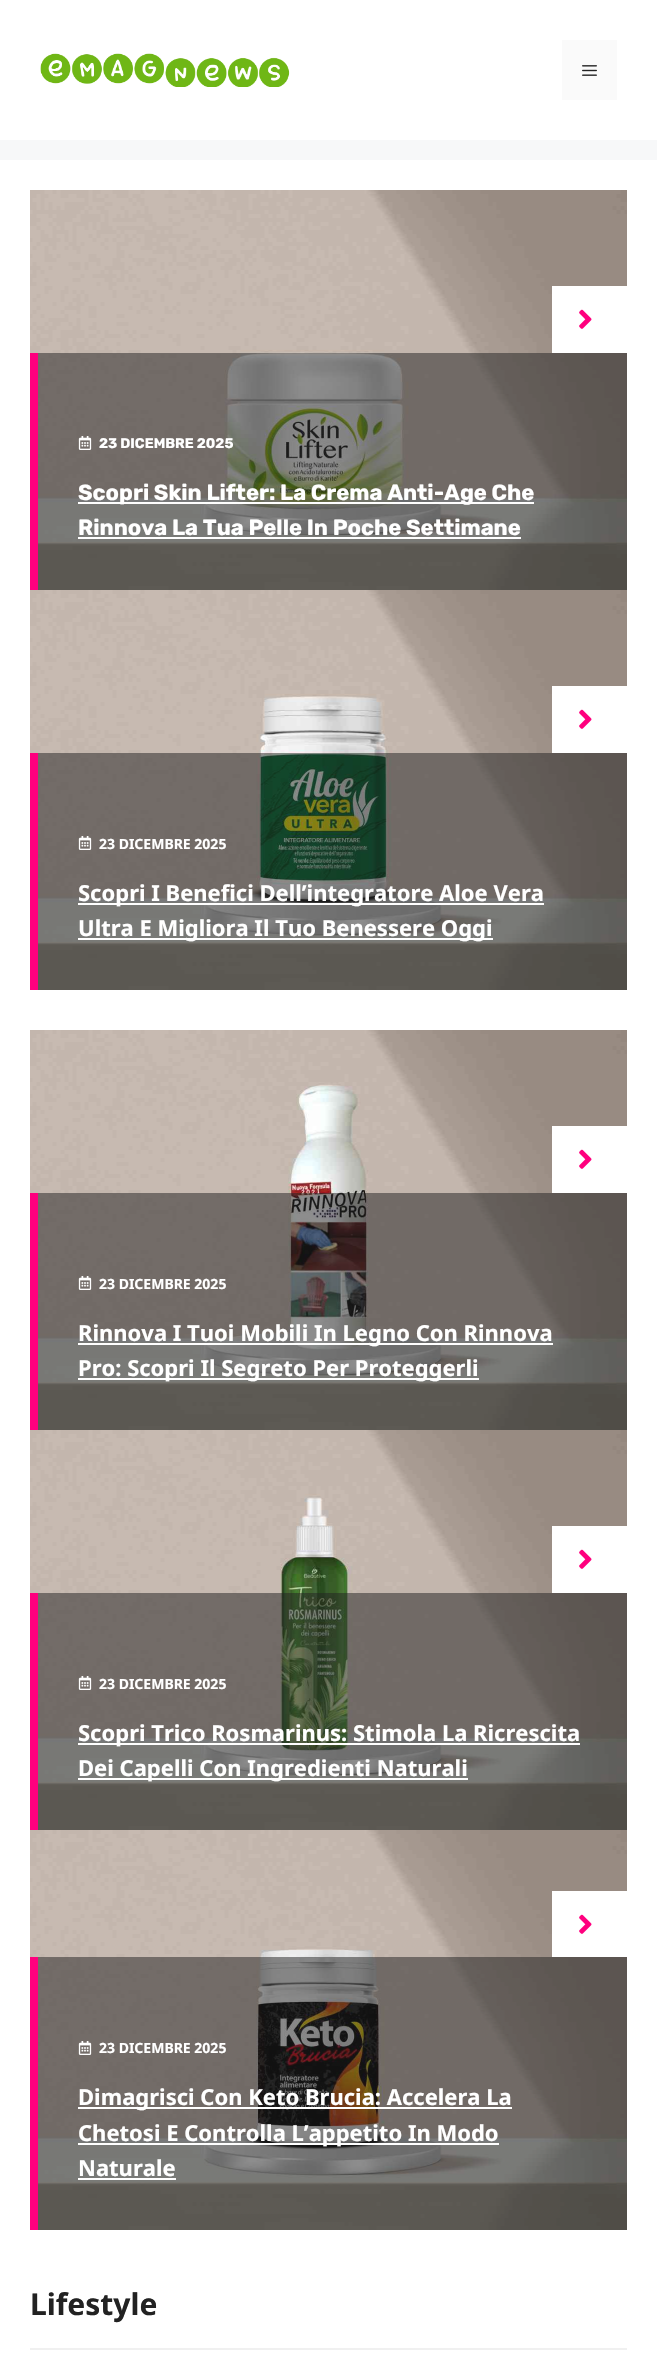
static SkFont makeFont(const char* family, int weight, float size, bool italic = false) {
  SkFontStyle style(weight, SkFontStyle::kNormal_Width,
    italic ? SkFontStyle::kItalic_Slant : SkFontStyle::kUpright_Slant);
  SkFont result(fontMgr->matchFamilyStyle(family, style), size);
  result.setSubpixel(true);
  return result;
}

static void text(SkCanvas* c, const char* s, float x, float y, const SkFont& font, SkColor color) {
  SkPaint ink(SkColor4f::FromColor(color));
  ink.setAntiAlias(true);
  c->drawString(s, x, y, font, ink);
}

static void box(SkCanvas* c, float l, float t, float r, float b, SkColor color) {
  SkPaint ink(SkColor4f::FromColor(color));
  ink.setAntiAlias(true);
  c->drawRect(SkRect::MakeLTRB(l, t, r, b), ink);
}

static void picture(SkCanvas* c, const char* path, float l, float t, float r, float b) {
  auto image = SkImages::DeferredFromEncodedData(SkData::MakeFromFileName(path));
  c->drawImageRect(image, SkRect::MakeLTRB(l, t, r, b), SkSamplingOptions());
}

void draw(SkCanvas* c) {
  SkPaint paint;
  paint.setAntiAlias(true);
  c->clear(0xfff7f8f9);
  box(c, 0, 0, 657, 140, 0xffffffff);
  picture(c, "img_01.png", 40, 53, 290, 87);
  box(c, 562, 40, 617, 100, 0xfffafafa);
  picture(c, "img_02.png", 582, 65, 597, 76);
  box(c, 0, 160, 657, 2356, 0xffffffff);
  picture(c, "img_03.png", 30, 190, 627, 590);
  box(c, 552, 286, 627, 353, 0xffffffff);
  picture(c, "img_04.png", 579, 309, 592, 329);
  box(c, 38, 353, 627, 590, 0x82212121);
  box(c, 30, 353, 38, 590, 0xffff007e);
  picture(c, "img_05.png", 78, 436, 92, 450);
  SkFont face1 = makeFont("Rubik", 700, 14);
  text(c, "23 DICEMBRE 2025", 99, 448, face1, 0xffffffff);
  box(c, 78, 502, 534, 504, 0xffffffff);
  SkFont face2 = makeFont("Rubik", 700, 22);
  text(c, "Scopri Skin Lifter: La Crema Anti-Age Che", 78, 500, face2, 0xffffffff);
  text(c, "Rinnova La Tua Pelle In Poche Settimane", 78, 535, face2, 0xffffffff);
  box(c, 78, 537, 521, 539, 0xffffffff);
  picture(c, "img_06.png", 30, 590, 627, 990);
  box(c, 552, 686, 627, 753, 0xffffffff);
  picture(c, "img_04.png", 579, 709, 592, 729);
  box(c, 38, 753, 627, 990, 0x82212121);
  box(c, 30, 753, 38, 990, 0xffff007e);
  picture(c, "img_05.png", 78, 836, 92, 850);
  SkFont face3 = makeFont("Noto Sans", 700, 14);
  text(c, "23 DICEMBRE 2025", 99, 849, face3, 0xffffffff);
  box(c, 78, 903, 544, 905, 0xffffffff);
  SkFont face4 = makeFont("Noto Sans", 700, 22);
  text(c, "Scopri I Benefici Dell’integratore Aloe Vera", 78, 901, face4, 0xffffffff);
  box(c, 78, 938, 493, 940, 0xffffffff);
  text(c, "Ultra E Migliora Il Tuo Benessere Oggi", 78, 936, face4, 0xffffffff);
  picture(c, "img_07.png", 30, 1030, 627, 1430);
  box(c, 552, 1126, 627, 1193, 0xffffffff);
  picture(c, "img_04.png", 579, 1149, 592, 1169);
  box(c, 38, 1193, 627, 1430, 0x82212121);
  box(c, 30, 1193, 38, 1430, 0xffff007e);
  picture(c, "img_05.png", 78, 1276, 92, 1290);
  text(c, "23 DICEMBRE 2025", 99, 1289, face3, 0xffffffff);
  box(c, 78, 1343, 553, 1345, 0xffffffff);
  text(c, "Rinnova I Tuoi Mobili In Legno Con Rinnova", 78, 1341, face4, 0xffffffff);
  box(c, 78, 1378, 479, 1380, 0xffffffff);
  text(c, "Pro: Scopri Il Segreto Per Proteggerli", 78, 1376, face4, 0xffffffff);
  picture(c, "img_08.png", 30, 1430, 627, 1830);
  box(c, 552, 1526, 627, 1593, 0xffffffff);
  picture(c, "img_04.png", 579, 1549, 592, 1569);
  box(c, 38, 1593, 627, 1830, 0x82212121);
  box(c, 30, 1593, 38, 1830, 0xffff007e);
  picture(c, "img_05.png", 78, 1676, 92, 1690);
  text(c, "23 DICEMBRE 2025", 99, 1689, face3, 0xffffffff);
  box(c, 78, 1743, 580, 1745, 0xffffffff);
  text(c, "Scopri Trico Rosmarinus: Stimola La Ricrescita", 78, 1741, face4, 0xffffffff);
  box(c, 78, 1778, 468, 1780, 0xffffffff);
  text(c, "Dei Capelli Con Ingredienti Naturali", 78, 1776, face4, 0xffffffff);
  picture(c, "img_09.png", 30, 1830, 627, 2230);
  box(c, 552, 1891, 627, 1957, 0xffffffff);
  picture(c, "img_04.png", 579, 1914, 592, 1934);
  box(c, 38, 1957, 627, 2230, 0x82212121);
  box(c, 30, 1957, 38, 2230, 0xffff007e);
  picture(c, "img_10.png", 78, 2041, 92, 2055);
  text(c, "23 DICEMBRE 2025", 99, 2053, face3, 0xffffffff);
  box(c, 78, 2107, 512, 2109, 0xffffffff);
  text(c, "Dimagrisci Con Keto Brucia: Accelera La", 78, 2105, face4, 0xffffffff);
  box(c, 78, 2143, 499, 2145, 0xffffffff);
  text(c, "Chetosi E Controlla L’appetito In Modo", 78, 2141, face4, 0xffffffff);
  text(c, "Naturale", 78, 2176, face4, 0xffffffff);
  box(c, 78, 2178, 176, 2180, 0xffffffff);
  box(c, 30, 2348, 627, 2350, 0xfff0f0f0);
  SkFont face5 = makeFont("Noto Sans", 700, 30);
  text(c, "Lifestyle", 30, 2315, face5, 0xff222222);
}
